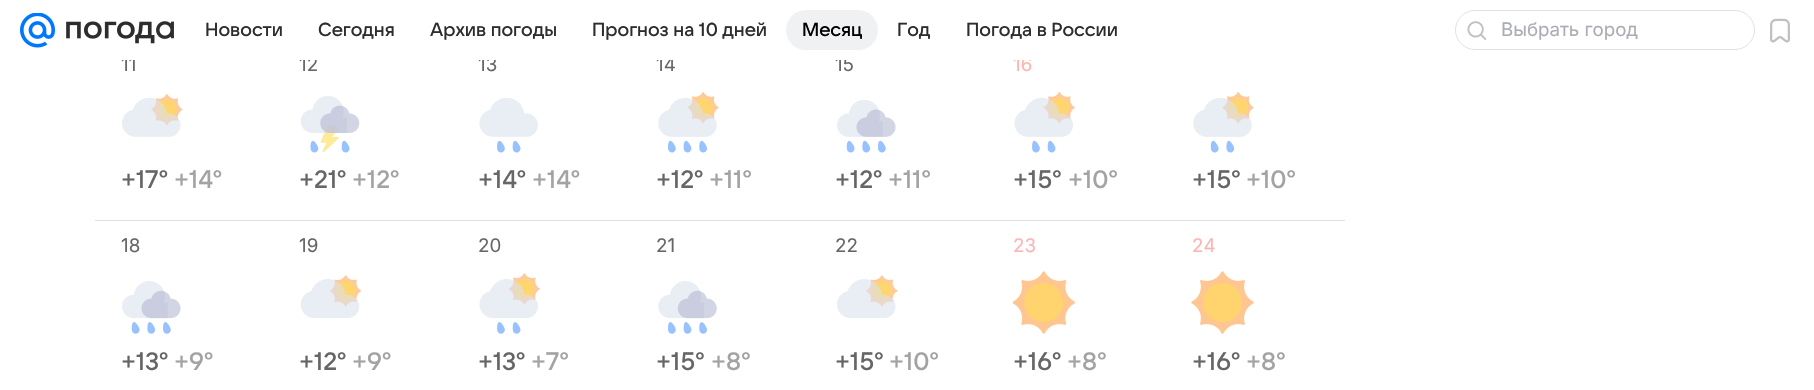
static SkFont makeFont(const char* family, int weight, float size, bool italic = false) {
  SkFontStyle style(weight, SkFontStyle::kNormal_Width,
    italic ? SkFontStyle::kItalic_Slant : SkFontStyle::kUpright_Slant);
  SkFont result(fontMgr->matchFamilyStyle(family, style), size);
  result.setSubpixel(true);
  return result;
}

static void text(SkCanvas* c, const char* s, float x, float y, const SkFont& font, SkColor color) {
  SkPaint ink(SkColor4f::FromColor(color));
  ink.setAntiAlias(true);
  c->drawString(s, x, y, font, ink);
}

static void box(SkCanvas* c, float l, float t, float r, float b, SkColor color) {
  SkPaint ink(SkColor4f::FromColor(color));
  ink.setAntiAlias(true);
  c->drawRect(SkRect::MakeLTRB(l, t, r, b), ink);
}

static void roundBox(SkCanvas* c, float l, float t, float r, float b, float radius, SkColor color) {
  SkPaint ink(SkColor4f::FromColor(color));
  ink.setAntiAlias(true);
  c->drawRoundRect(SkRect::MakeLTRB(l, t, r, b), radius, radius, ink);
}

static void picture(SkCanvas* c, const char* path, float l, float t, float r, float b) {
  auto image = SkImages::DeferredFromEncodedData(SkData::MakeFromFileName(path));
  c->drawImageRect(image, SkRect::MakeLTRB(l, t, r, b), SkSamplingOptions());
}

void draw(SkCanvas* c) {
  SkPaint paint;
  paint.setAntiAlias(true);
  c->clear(0xffffffff);
  box(c, 95, 39, 1345, 40, 0xffe1e0e0);
  SkFont face1 = makeFont("Inter", 400, 18.75f);
  text(c, "11", 121, 71, face1, 0xff666666);
  text(c, "12", 299, 71, face1, 0xff666666);
  text(c, "13", 478, 71, face1, 0xff666666);
  text(c, "14", 656, 71, face1, 0xff666666);
  SkFont face2 = makeFont("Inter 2", 400, 18.75f);
  text(c, "15", 835, 71, face2, 0xff666666);
  text(c, "16", 1013, 71, face1, 0xffffb3b3);
  box(c, 95, 39, 1345, 60, 0xe6ffffff);
  box(c, 95, 39, 1345, 60, 0xe6ffffff);
  picture(c, "img_01.png", 20, 13, 55, 48);
  picture(c, "img_02.png", 66, 21, 174, 44);
  SkFont face3 = makeFont("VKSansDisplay", 500, 18.75f);
  text(c, "Новости", 205, 36, face3, 0xff2c2d2e);
  text(c, "Сегодня", 318, 36, face3, 0xff2c2d2e);
  text(c, "Архив погоды", 430, 36, face3, 0xff2c2d2e);
  text(c, "Прогноз на 10 дней", 592, 36, face3, 0xff2c2d2e);
  roundBox(c, 786, 10, 878, 50, 20, 0xfff0f1f3);
  text(c, "Месяц", 802, 36, face3, 0xff000000);
  text(c, "Год", 897, 36, face3, 0xff2c2d2e);
  text(c, "Погода в России", 966, 36, face3, 0xff2c2d2e);
  paint.setStyle(SkPaint::kStroke_Style);
  paint.setStrokeWidth(1);
  paint.setColor(0xffe0e2e8);
  c->drawRoundRect(SkRect::MakeLTRB(1455.5f, 10.5f, 1754.5f, 49.5f), 19.5f, 19.5f, paint);
  picture(c, "img_03.png", 1467, 21, 1487, 40);
  SkFont face4 = makeFont("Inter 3", 400, 18.75f);
  text(c, "Выбрать город", 1501, 36, face4, 0xffaaadb3);
  picture(c, "img_04.png", 1770, 18, 1790, 43);
  box(c, 95, 220, 1345, 221, 0xffe1e0e0);
  picture(c, "img_05.png", 122, 94, 183, 137);
  SkFont face5 = makeFont("VKSansDisplay", 500, 25);
  text(c, "+17°", 121, 188, face5, 0xff666666);
  text(c, "+14°", 174, 188, face5, 0xffa3a3a3);
  picture(c, "img_06.png", 300, 96, 360, 153);
  text(c, "+21°", 299, 188, face5, 0xff666666);
  text(c, "+12°", 352, 188, face5, 0xffa3a3a3);
  picture(c, "img_07.png", 479, 98, 538, 153);
  text(c, "+14°", 478, 188, face5, 0xff666666);
  text(c, "+14°", 532, 188, face5, 0xffa3a3a3);
  picture(c, "img_08.png", 658, 92, 719, 153);
  text(c, "+12°", 656, 188, face5, 0xff666666);
  text(c, "+11°", 709, 188, face5, 0xffa3a3a3);
  picture(c, "img_09.png", 837, 99, 896, 153);
  text(c, "+12°", 835, 188, face5, 0xff666666);
  text(c, "+11°", 888, 188, face5, 0xffa3a3a3);
  picture(c, "img_10.png", 1014, 92, 1075, 153);
  text(c, "+15°", 1013, 188, face5, 0xff666666);
  text(c, "+10°", 1068, 188, face5, 0xffa3a3a3);
  picture(c, "img_11.png", 1193, 92, 1254, 153);
  text(c, "+15°", 1192, 188, face5, 0xff666666);
  text(c, "+10°", 1246, 188, face5, 0xffa3a3a3);
  text(c, "18", 121, 252, face1, 0xff666666);
  picture(c, "img_12.png", 122, 281, 181, 334);
  text(c, "+13°", 121, 370, face5, 0xff666666);
  text(c, "+9°", 174, 370, face5, 0xffa3a3a3);
  text(c, "19", 299, 252, face1, 0xff666666);
  picture(c, "img_13.png", 300, 275, 361, 318);
  text(c, "+12°", 299, 370, face5, 0xff666666);
  text(c, "+9°", 352, 370, face5, 0xffa3a3a3);
  text(c, "20", 478, 252, face1, 0xff666666);
  picture(c, "img_14.png", 479, 273, 540, 334);
  text(c, "+13°", 478, 370, face5, 0xff666666);
  text(c, "+7°", 531, 370, face5, 0xffa3a3a3);
  text(c, "21", 656, 252, face1, 0xff666666);
  picture(c, "img_15.png", 658, 281, 717, 334);
  text(c, "+15°", 656, 370, face5, 0xff666666);
  text(c, "+8°", 711, 370, face5, 0xffa3a3a3);
  text(c, "22", 835, 252, face1, 0xff666666);
  picture(c, "img_16.png", 837, 275, 898, 318);
  text(c, "+15°", 835, 370, face5, 0xff666666);
  text(c, "+10°", 889, 370, face5, 0xffa3a3a3);
  text(c, "23", 1013, 252, face1, 0xffffb3b3);
  picture(c, "img_17.png", 1013, 271, 1075, 334);
  text(c, "+16°", 1013, 370, face5, 0xff666666);
  text(c, "+8°", 1067, 370, face5, 0xffa3a3a3);
  text(c, "24", 1192, 252, face1, 0xffffb3b3);
  picture(c, "img_18.png", 1191, 271, 1254, 334);
  text(c, "+16°", 1192, 370, face5, 0xff666666);
  text(c, "+8°", 1246, 370, face5, 0xffa3a3a3);
}
